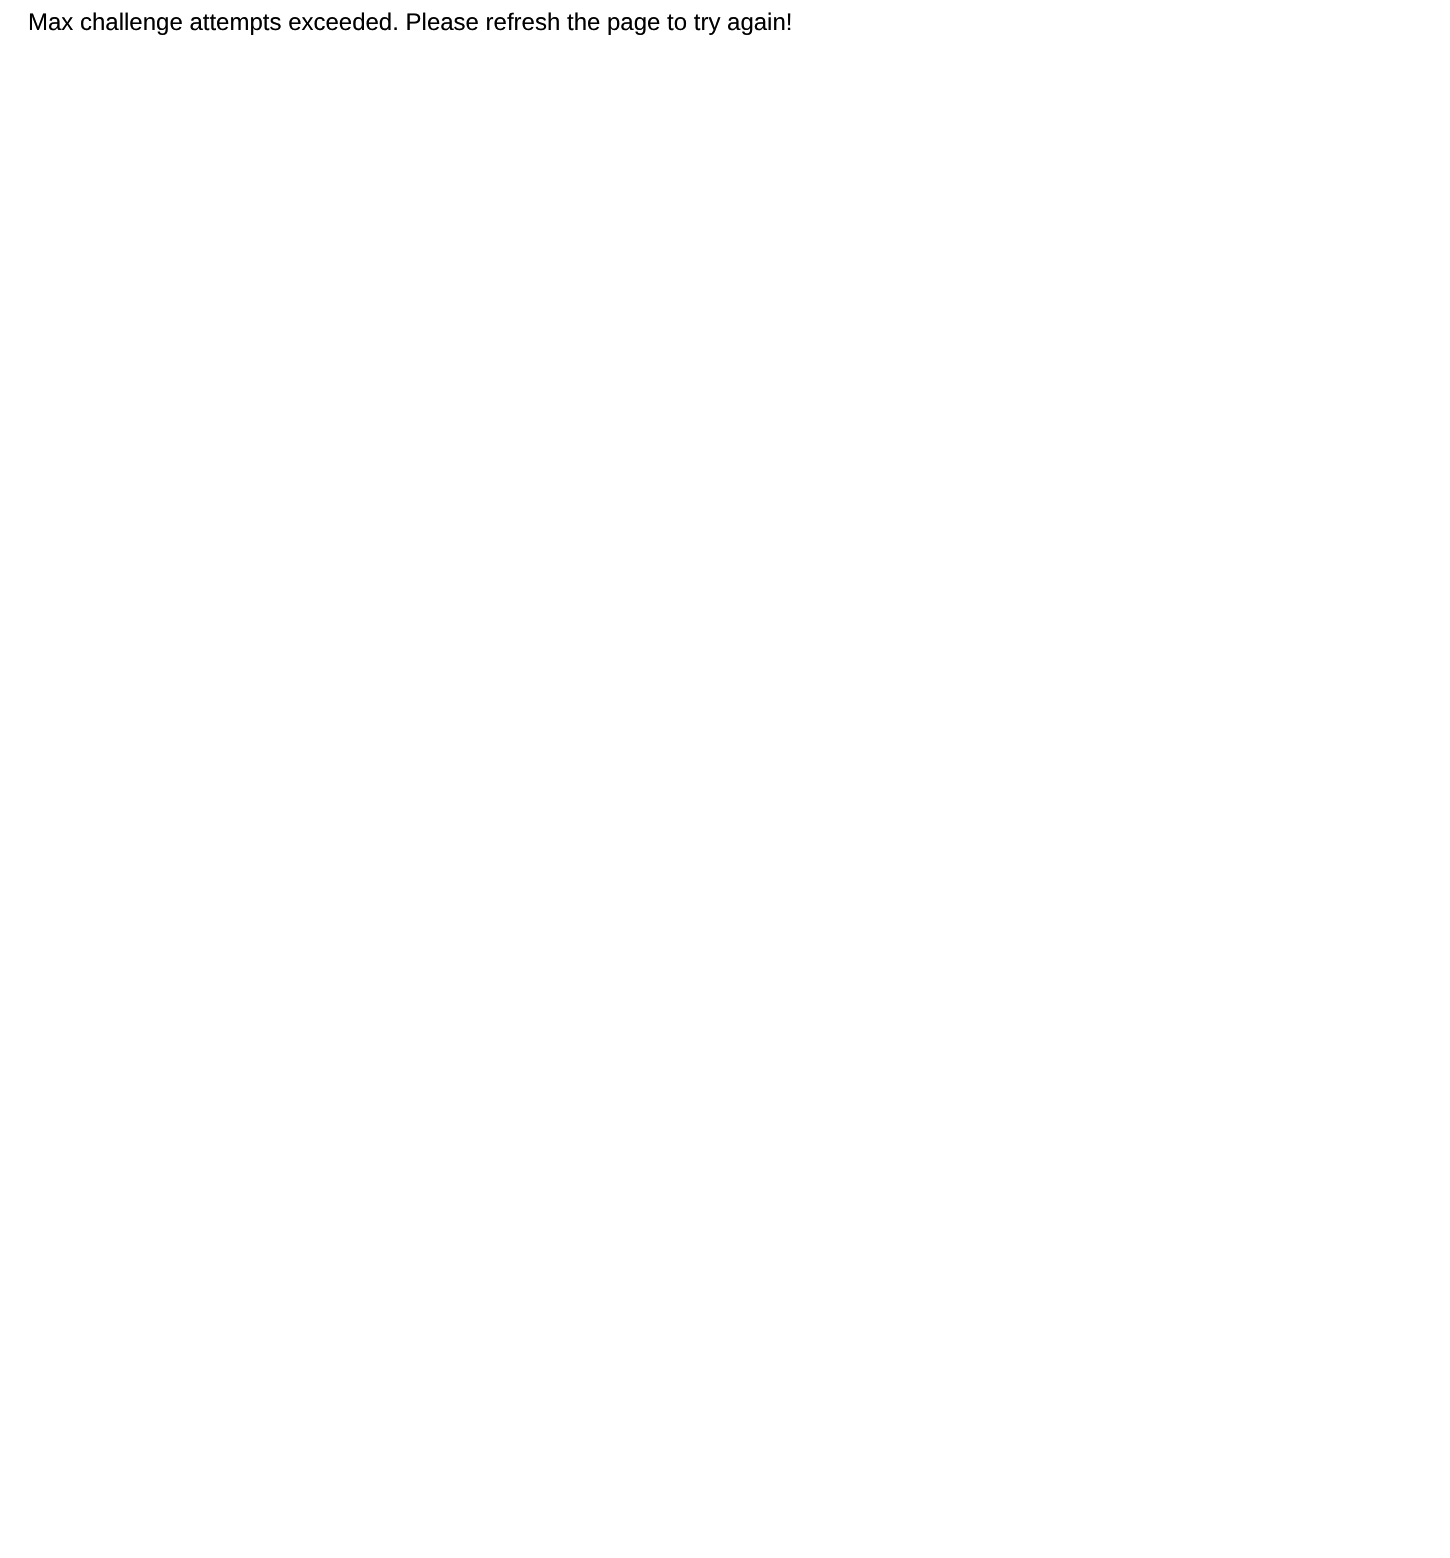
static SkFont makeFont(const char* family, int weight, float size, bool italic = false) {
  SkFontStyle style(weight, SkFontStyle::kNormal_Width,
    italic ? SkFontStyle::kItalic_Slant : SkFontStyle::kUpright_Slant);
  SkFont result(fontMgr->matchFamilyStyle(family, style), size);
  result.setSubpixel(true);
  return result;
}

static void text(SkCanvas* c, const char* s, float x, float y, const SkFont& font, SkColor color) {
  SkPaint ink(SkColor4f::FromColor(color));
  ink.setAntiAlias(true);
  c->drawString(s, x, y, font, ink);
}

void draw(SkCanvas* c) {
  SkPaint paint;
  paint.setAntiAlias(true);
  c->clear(0xffffffff);
  SkFont face1 = makeFont("Liberation Sans", 400, 24);
  text(c, "Max challenge attempts exceeded. Please refresh the page to try again!", 28, 30, face1, 0xff000000);
}
